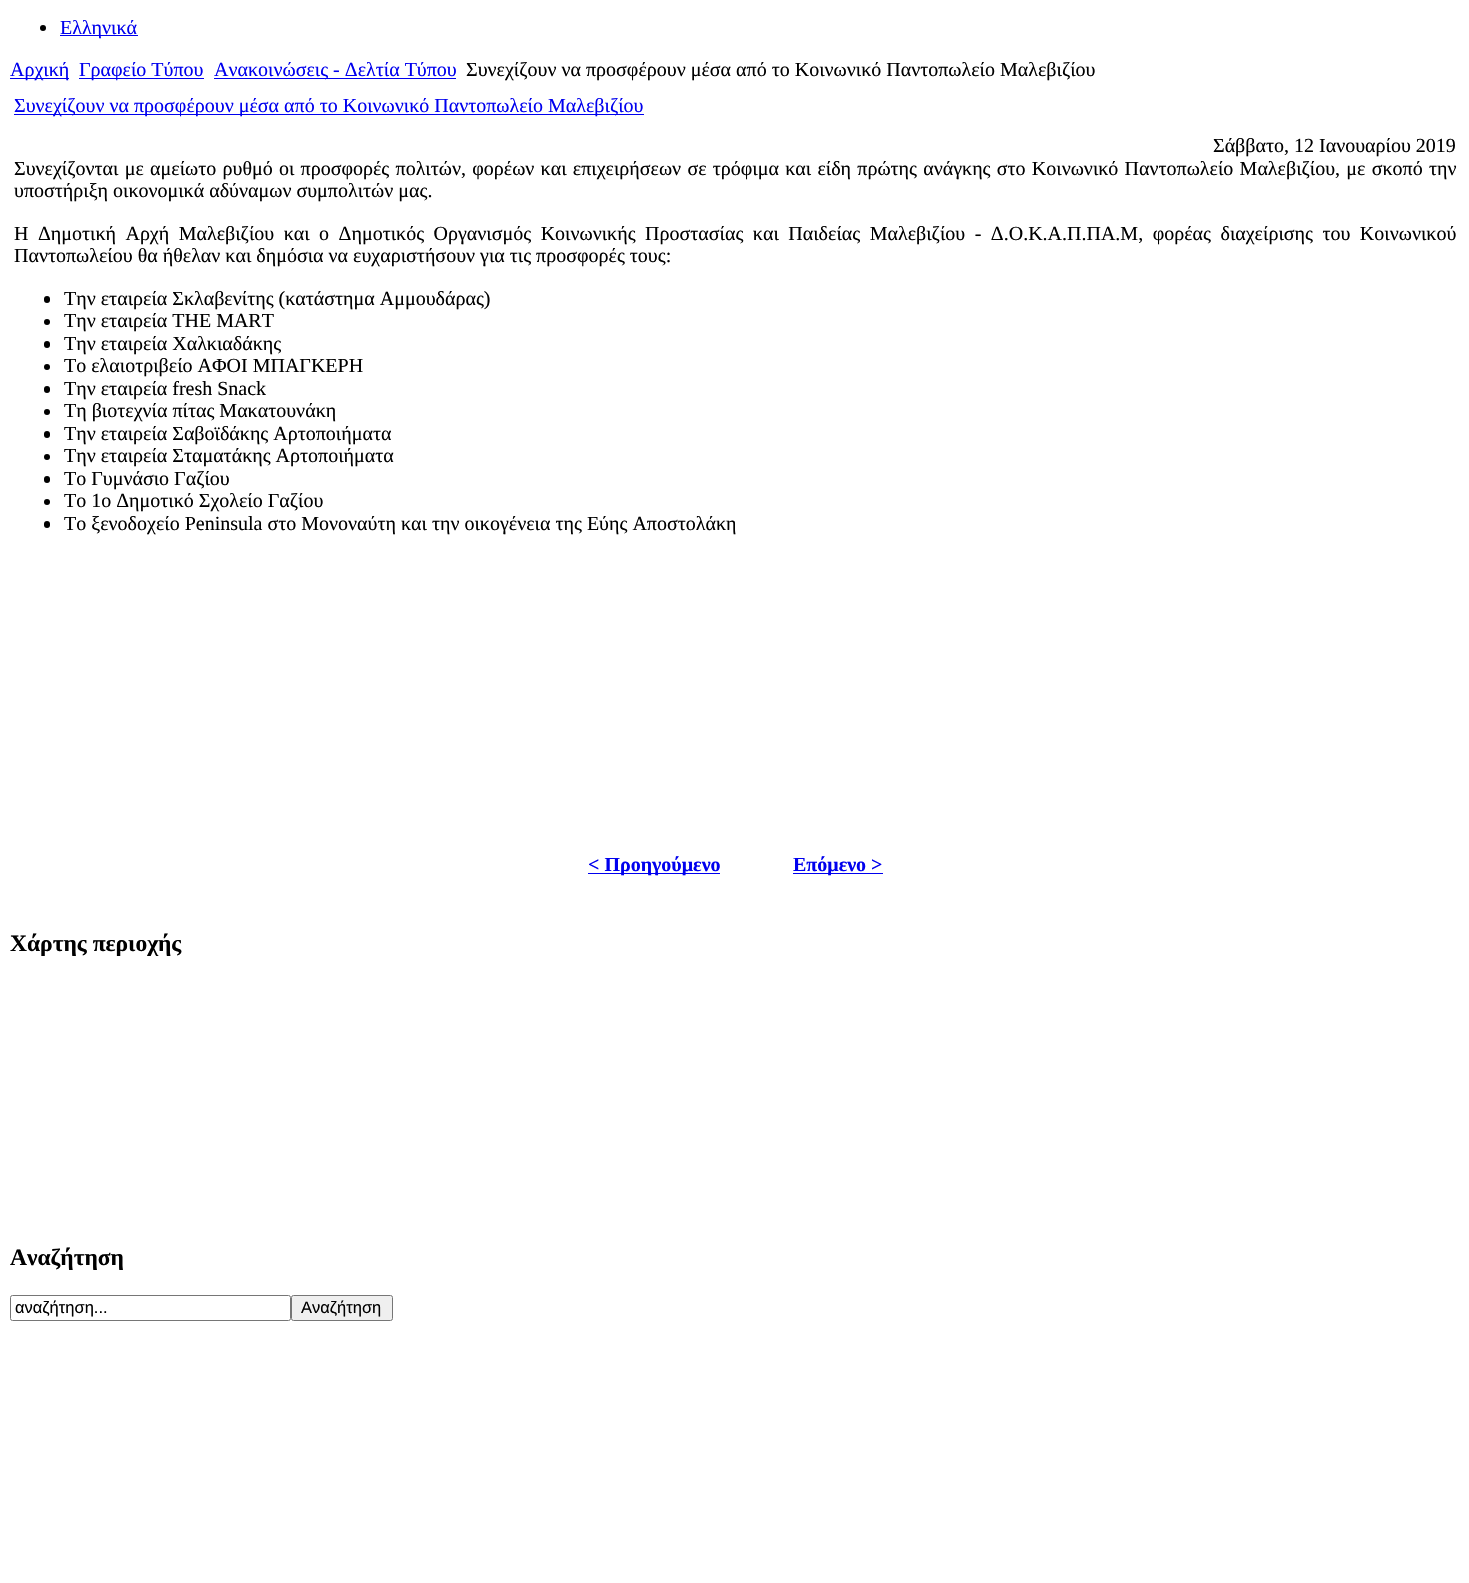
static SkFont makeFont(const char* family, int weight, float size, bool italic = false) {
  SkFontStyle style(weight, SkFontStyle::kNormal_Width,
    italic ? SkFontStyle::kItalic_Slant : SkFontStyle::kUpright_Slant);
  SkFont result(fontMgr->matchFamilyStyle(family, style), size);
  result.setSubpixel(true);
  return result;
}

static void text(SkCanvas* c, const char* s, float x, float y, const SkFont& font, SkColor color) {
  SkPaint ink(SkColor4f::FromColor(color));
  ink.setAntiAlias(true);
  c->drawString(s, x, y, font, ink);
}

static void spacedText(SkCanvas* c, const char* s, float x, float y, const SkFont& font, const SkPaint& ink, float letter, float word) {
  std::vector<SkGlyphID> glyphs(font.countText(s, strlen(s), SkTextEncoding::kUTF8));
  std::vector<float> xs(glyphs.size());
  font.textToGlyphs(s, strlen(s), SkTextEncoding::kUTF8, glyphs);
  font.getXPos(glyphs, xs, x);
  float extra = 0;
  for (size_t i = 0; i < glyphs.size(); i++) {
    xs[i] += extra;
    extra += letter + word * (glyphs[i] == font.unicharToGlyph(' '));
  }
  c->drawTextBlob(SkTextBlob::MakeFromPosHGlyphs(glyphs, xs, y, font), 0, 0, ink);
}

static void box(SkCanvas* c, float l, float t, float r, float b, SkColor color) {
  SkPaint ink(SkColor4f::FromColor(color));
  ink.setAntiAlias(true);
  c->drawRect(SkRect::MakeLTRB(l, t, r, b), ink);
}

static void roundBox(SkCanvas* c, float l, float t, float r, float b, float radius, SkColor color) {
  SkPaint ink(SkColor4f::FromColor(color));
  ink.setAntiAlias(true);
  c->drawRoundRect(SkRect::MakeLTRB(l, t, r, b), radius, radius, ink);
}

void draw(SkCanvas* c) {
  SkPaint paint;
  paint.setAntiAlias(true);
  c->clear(0xffffffff);
  paint.setColor(0xff000000);
  c->drawCircle(43, 28, 3, paint);
  box(c, 60, 35, 138, 36, 0xff0000ee);
  SkFont face1 = makeFont("Liberation Serif", 400, 20);
  text(c, "Ελληνικά", 60, 34, face1, 0xff0000ee);
  box(c, 10, 78, 69, 79, 0xff0000ee);
  text(c, "Αρχική", 10, 76, face1, 0xff0000ee);
  box(c, 79, 78, 204, 79, 0xff0000ee);
  text(c, "Γραφείο Τύπου", 79, 76, face1, 0xff0000ee);
  box(c, 214, 78, 456, 79, 0xff0000ee);
  text(c, "Ανακοινώσεις - Δελτία Τύπου", 214, 76, face1, 0xff0000ee);
  text(c, "Συνεχίζουν να προσφέρουν μέσα από το Κοινωνικό Παντοπωλείο Μαλεβιζίου", 466, 76, face1, 0xff000000);
  box(c, 14, 114, 644, 115, 0xff0000ee);
  text(c, "Συνεχίζουν να προσφέρουν μέσα από το Κοινωνικό Παντοπωλείο Μαλεβιζίου", 14, 112, face1, 0xff0000ee);
  text(c, "Σάββατο, 12 Ιανουαρίου 2019", 1213, 152, face1, 0xff000000);
  spacedText(c, "Συνεχίζονται με αμείωτο ρυθμό οι προσφορές πολιτών, φορέων και επιχειρήσεων σε τρόφιμα και είδη πρώτης ανάγκης στο Κοινωνικό Παντοπωλείο Μαλεβιζίου, με σκοπό την", 14, 175, face1, paint, 0, 1.25f);
  text(c, "υποστήριξη οικονομικά αδύναμων συμπολιτών μας.", 14, 197, face1, 0xff000000);
  spacedText(c, "Η Δημοτική Αρχή Μαλεβιζίου και ο Δημοτικός Οργανισμός Κοινωνικής Προστασίας και Παιδείας Μαλεβιζίου - Δ.Ο.Κ.Α.Π.ΠΑ.Μ, φορέας διαχείρισης του Κοινωνικού", 14, 240, face1, paint, 0, 4.5f);
  text(c, "Παντοπωλείου θα ήθελαν και δημόσια να ευχαριστήσουν για τις προσφορές τους:", 14, 262, face1, 0xff000000);
  roundBox(c, 44, 296, 50, 303, 3, 0xff000000);
  text(c, "Την εταιρεία Σκλαβενίτης (κατάστημα Αμμουδάρας)", 64, 305, face1, 0xff000000);
  c->drawCircle(47, 322, 3, paint);
  text(c, "Την εταιρεία ΤΗΕ MART", 64, 327, face1, 0xff000000);
  roundBox(c, 44, 341, 50, 348, 3, 0xff000000);
  text(c, "Την εταιρεία Χαλκιαδάκης", 64, 350, face1, 0xff000000);
  c->drawCircle(47, 367, 3, paint);
  text(c, "Το ελαιοτριβείο ΑΦΟΙ ΜΠΑΓΚΕΡΗ", 64, 372, face1, 0xff000000);
  roundBox(c, 44, 386, 50, 393, 3, 0xff000000);
  text(c, "Την εταιρεία fresh Snack", 64, 395, face1, 0xff000000);
  c->drawCircle(47, 412, 3, paint);
  text(c, "Τη βιοτεχνία πίτας Μακατουνάκη", 64, 417, face1, 0xff000000);
  roundBox(c, 44, 431, 50, 438, 3, 0xff000000);
  text(c, "Την εταιρεία Σαβοϊδάκης Αρτοποιήματα", 64, 440, face1, 0xff000000);
  c->drawCircle(47, 457, 3, paint);
  text(c, "Την εταιρεία Σταματάκης Αρτοποιήματα", 64, 462, face1, 0xff000000);
  roundBox(c, 44, 476, 50, 483, 3, 0xff000000);
  text(c, "Το Γυμνάσιο Γαζίου", 64, 485, face1, 0xff000000);
  c->drawCircle(47, 502, 3, paint);
  text(c, "Το 1ο Δημοτικό Σχολείο Γαζίου", 64, 507, face1, 0xff000000);
  roundBox(c, 44, 521, 50, 528, 3, 0xff000000);
  text(c, "Το ξενοδοχείο Peninsula στο Μονοναύτη και την οικογένεια της Εύης Αποστολάκη", 64, 530, face1, 0xff000000);
  box(c, 588, 873, 720, 874, 0xff0000ee);
  SkFont face2 = makeFont("Liberation Serif", 700, 20);
  text(c, "< Προηγούμενο", 588, 871, face2, 0xff0000ee);
  box(c, 793, 873, 883, 874, 0xff0000ee);
  text(c, "Επόμενο >", 793, 871, face2, 0xff0000ee);
  SkFont face3 = makeFont("Liberation Serif", 700, 23.5f);
  text(c, "Χάρτης περιοχής", 10, 951, face3, 0xff000000);
  text(c, "Αναζήτηση", 10, 1265, face3, 0xff000000);
  paint.setStyle(SkPaint::kStroke_Style);
  paint.setStrokeWidth(1);
  paint.setColor(0xff767676);
  c->drawRoundRect(SkRect::MakeLTRB(10.5f, 1295.5f, 290.5f, 1320.5f), 2, 2, paint);
  SkFont face4 = makeFont("Liberation Sans", 400, 16.5f);
  text(c, "αναζήτηση...", 15, 1313, face4, 0xff000000);
  paint.setStyle(SkPaint::kFill_Style);
  paint.setColor(0xffefefef);
  c->drawRoundRect(SkRect::MakeLTRB(291.5f, 1295.5f, 392.5f, 1320.5f), 2, 2, paint);
  paint.setStyle(SkPaint::kStroke_Style);
  paint.setColor(0xff767676);
  c->drawRoundRect(SkRect::MakeLTRB(291.5f, 1295.5f, 392.5f, 1320.5f), 2, 2, paint);
  text(c, "Αναζήτηση", 301, 1313, face4, 0xff000000);
}
